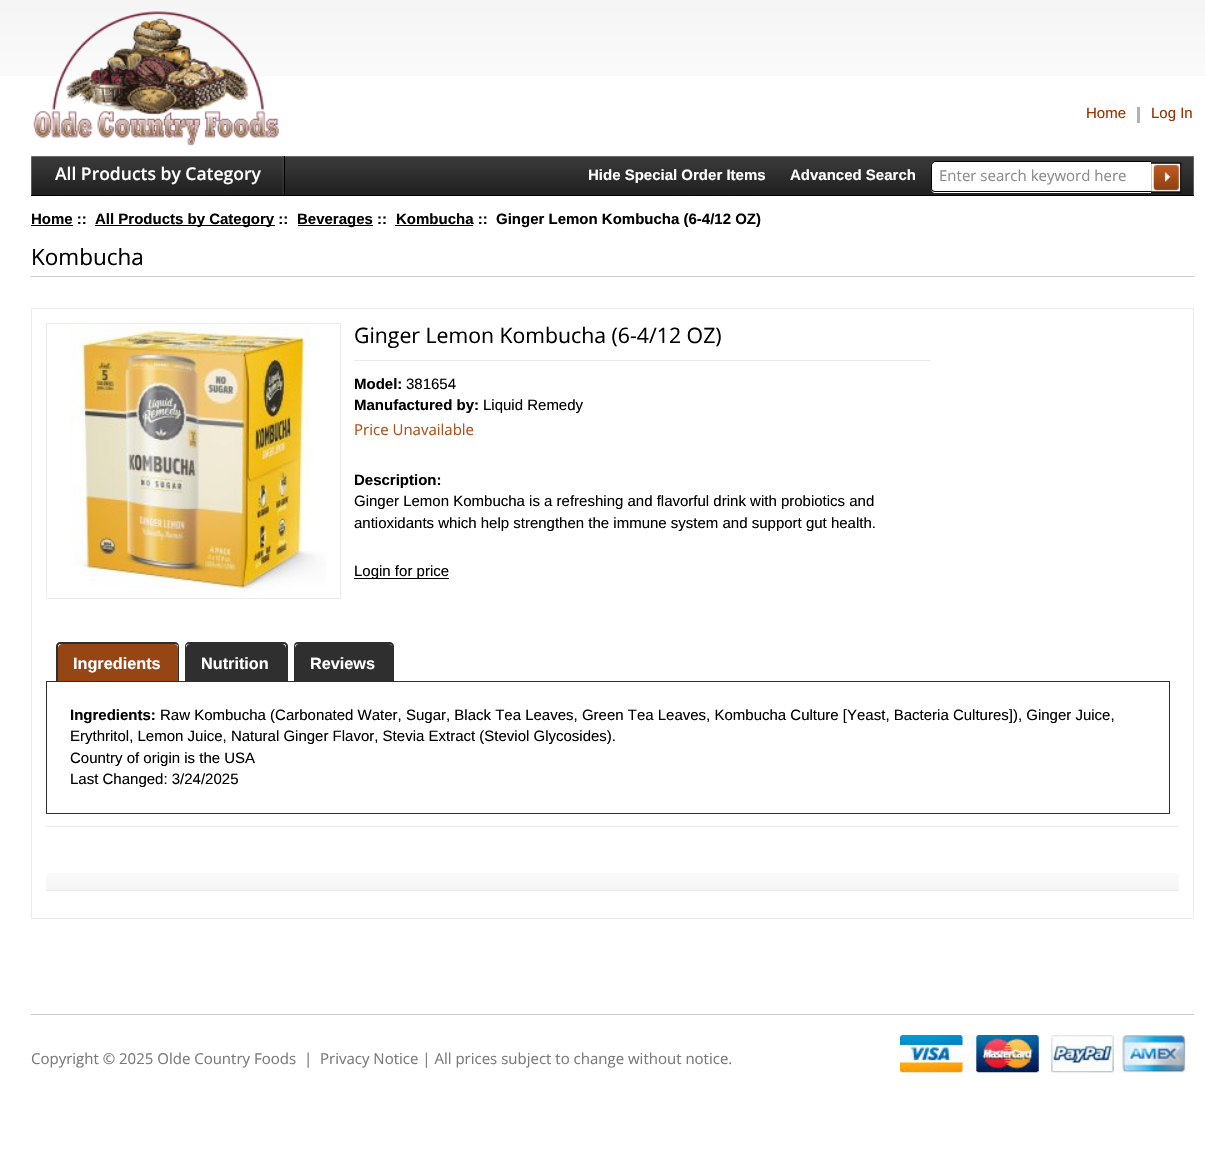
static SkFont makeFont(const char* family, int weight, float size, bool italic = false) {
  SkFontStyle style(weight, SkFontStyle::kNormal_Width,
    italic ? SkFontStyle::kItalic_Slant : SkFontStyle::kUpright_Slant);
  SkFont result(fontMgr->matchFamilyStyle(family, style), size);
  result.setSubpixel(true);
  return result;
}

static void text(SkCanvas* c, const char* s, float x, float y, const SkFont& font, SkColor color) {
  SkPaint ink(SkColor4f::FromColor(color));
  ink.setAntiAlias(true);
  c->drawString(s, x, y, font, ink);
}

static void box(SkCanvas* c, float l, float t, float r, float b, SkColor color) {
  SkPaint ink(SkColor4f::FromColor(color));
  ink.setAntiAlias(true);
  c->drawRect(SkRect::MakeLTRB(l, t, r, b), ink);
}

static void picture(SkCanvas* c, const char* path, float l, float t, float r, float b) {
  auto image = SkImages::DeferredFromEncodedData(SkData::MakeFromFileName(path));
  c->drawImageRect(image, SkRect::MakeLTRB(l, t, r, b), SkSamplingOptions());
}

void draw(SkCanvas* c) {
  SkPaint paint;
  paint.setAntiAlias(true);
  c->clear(0xffffffff);
  picture(c, "img_01.png", 0, 0, 1205, 76);
  picture(c, "img_02.png", 31, 157, 1194, 177);
  picture(c, "img_03.png", 33, 11, 279, 146);
  SkFont face1 = makeFont("Liberation Sans", 400, 15);
  text(c, "Home", 1086, 118, face1, 0xff993300);
  box(c, 1137, 107, 1140, 123, 0xffb2b2b2);
  text(c, "Log In", 1151, 118, face1, 0xff993300);
  picture(c, "img_04.png", 31, 156, 1194, 195);
  box(c, 31, 195, 1194, 196, 0xff000000);
  picture(c, "img_05.png", 282, 156, 284, 195);
  box(c, 284, 156, 285, 195, 0xff000000);
  SkFont face2 = makeFont("Open Sans", 600, 17.5f);
  text(c, "All Products by Category", 55, 180, face2, 0xffffffff);
  SkFont face3 = makeFont("Liberation Sans", 700, 15);
  text(c, "Hide Special Order Items", 588, 180, face3, 0xffffffff);
  text(c, "Advanced Search", 790, 180, face3, 0xffffffff);
  paint.setColor(0xffffffff);
  c->drawPath(SkPathBuilder().moveTo(935, 161).lineTo(1151, 161).lineTo(1151, 193).lineTo(935, 193).cubicTo(933, 193, 931, 191, 931, 189).lineTo(931, 165).cubicTo(931, 163, 933, 161, 935, 161).close().detach(), paint);
  paint.setColor(0xff020202);
  c->drawPath(SkPathBuilder(SkPathFillType::kEvenOdd).moveTo(935, 161).lineTo(1151, 161).lineTo(1151, 192).lineTo(935, 192).cubicTo(933, 192, 931, 191, 931, 189).lineTo(931, 165).cubicTo(931, 163, 933, 161, 935, 161).close().moveTo(935, 162).lineTo(1151, 162).lineTo(1151, 191).lineTo(935, 191).cubicTo(934, 191, 932, 190, 932, 189).lineTo(932, 165).cubicTo(932, 164, 934, 162, 935, 162).close().detach(), paint);
  SkFont face4 = makeFont("Open Sans", 400, 15);
  text(c, "Enter search keyword here", 939, 181, face4, 0xff8b8b8b);
  picture(c, "img_06.png", 1151, 162, 1182, 193);
  text(c, "Home ::", 31, 224, face3, 0xff000000);
  box(c, 31, 225, 73, 226, 0xff000000);
  box(c, 95, 225, 275, 226, 0xff000000);
  text(c, "All Products by Category ::", 95, 224, face3, 0xff000000);
  box(c, 298, 225, 373, 226, 0xff000000);
  text(c, "Beverages ::", 297, 224, face3, 0xff000000);
  box(c, 395, 225, 473, 226, 0xff000000);
  text(c, "Kombucha ::  Ginger Lemon Kombucha (6-4/12 OZ)", 396, 224, face3, 0xff000000);
  box(c, 31, 276, 1194, 277, 0xffcacaca);
  SkFont face5 = makeFont("Open Sans", 400, 22.5f);
  text(c, "Kombucha", 31, 265, face5, 0xff000000);
  paint.setStyle(SkPaint::kStroke_Style);
  paint.setStrokeWidth(1);
  paint.setColor(0xffeceaea);
  c->drawRect(SkRect::MakeLTRB(31.5f, 308.5f, 1193.5f, 918.5f), paint);
  c->drawRect(SkRect::MakeLTRB(46.5f, 323.5f, 340.5f, 598.5f), paint);
  picture(c, "img_07.png", 69, 326, 326, 595);
  box(c, 354, 360, 931, 361, 0xffeceaea);
  SkFont face6 = makeFont("Open Sans", 400, 21.25f);
  text(c, "Ginger Lemon Kombucha (6-4/12 OZ)", 354, 343, face6, 0xff000000);
  text(c, "Model:", 354, 389, face3, 0xff000000);
  text(c, "381654", 406, 389, face1, 0xff000000);
  text(c, "Manufactured by:", 354, 410, face3, 0xff000000);
  text(c, "Liquid Remedy", 483, 410, face1, 0xff000000);
  text(c, "Price Unavailable", 354, 435, face4, 0xffae5119);
  text(c, "Description:", 354, 485, face3, 0xff000000);
  text(c, "Ginger Lemon Kombucha is a refreshing and flavorful drink with probiotics and", 354, 506, face1, 0xff000000);
  text(c, "antioxidants which help strengthen the immune system and support gut health.", 354, 528, face1, 0xff000000);
  box(c, 354, 578, 449, 579, 0xff000000);
  text(c, "Login for price", 354, 576, face1, 0xff000000);
  paint.setStyle(SkPaint::kFill_Style);
  paint.setColor(0xff2f2f2f);
  c->drawPath(SkPathBuilder(SkPathFillType::kEvenOdd).moveTo(60, 642).lineTo(175, 642).cubicTo(177, 642, 179, 644, 179, 646).lineTo(179, 681).lineTo(56, 681).lineTo(56, 646).cubicTo(56, 644, 58, 642, 60, 642).close().moveTo(60, 644).lineTo(175, 644).cubicTo(176, 644, 178, 645, 178, 646).lineTo(178, 681).lineTo(58, 681).lineTo(58, 646).cubicTo(58, 645, 59, 644, 60, 644).close().detach(), paint);
  paint.setColor(0xff964515);
  c->drawPath(SkPathBuilder().moveTo(62, 644).lineTo(174, 644).cubicTo(176, 644, 178, 646, 178, 648).lineTo(178, 681).lineTo(58, 681).lineTo(58, 648).cubicTo(58, 646, 60, 644, 62, 644).close().detach(), paint);
  SkFont face7 = makeFont("Liberation Sans", 700, 16.25f);
  text(c, "Ingredients", 73, 669, face7, 0xffffffff);
  paint.setColor(0xff2f2f2f);
  c->drawPath(SkPathBuilder(SkPathFillType::kEvenOdd).moveTo(189, 642).lineTo(284, 642).cubicTo(286, 642, 288, 644, 288, 646).lineTo(288, 681).lineTo(185, 681).lineTo(185, 646).cubicTo(185, 644, 187, 642, 189, 642).close().moveTo(189, 644).lineTo(284, 644).cubicTo(285, 644, 286, 645, 286, 646).lineTo(286, 681).lineTo(186, 681).lineTo(186, 646).cubicTo(186, 645, 187, 644, 189, 644).close().detach(), paint);
  c->drawPath(SkPathBuilder().moveTo(190, 644).lineTo(282, 644).cubicTo(284, 644, 286, 646, 286, 648).lineTo(286, 681).lineTo(186, 681).lineTo(186, 648).cubicTo(186, 646, 188, 644, 190, 644).close().detach(), paint);
  text(c, "Nutrition", 201, 669, face7, 0xffffffff);
  c->drawPath(SkPathBuilder(SkPathFillType::kEvenOdd).moveTo(298, 642).lineTo(390, 642).cubicTo(392, 642, 394, 644, 394, 646).lineTo(394, 681).lineTo(294, 681).lineTo(294, 646).cubicTo(294, 644, 295, 642, 298, 642).close().moveTo(298, 644).lineTo(390, 644).cubicTo(391, 644, 392, 645, 392, 646).lineTo(392, 681).lineTo(295, 681).lineTo(295, 646).cubicTo(295, 645, 296, 644, 298, 644).close().detach(), paint);
  c->drawPath(SkPathBuilder().moveTo(299, 644).lineTo(389, 644).cubicTo(391, 644, 393, 646, 393, 648).lineTo(393, 681).lineTo(295, 681).lineTo(295, 648).cubicTo(295, 646, 297, 644, 299, 644).close().detach(), paint);
  text(c, "Reviews", 310, 669, face7, 0xffffffff);
  paint.setStyle(SkPaint::kStroke_Style);
  c->drawRect(SkRect::MakeLTRB(46.5f, 681.5f, 1169.5f, 813.5f), paint);
  text(c, "Ingredients:", 70, 720, face3, 0xff000000);
  text(c, "Raw Kombucha (Carbonated Water, Sugar, Black Tea Leaves, Green Tea Leaves, Kombucha Culture [Yeast, Bacteria Cultures]), Ginger Juice,", 160, 720, face1, 0xff000000);
  text(c, "Erythritol, Lemon Juice, Natural Ginger Flavor, Stevia Extract (Steviol Glycosides).", 70, 741, face1, 0xff000000);
  text(c, "Country of origin is the USA", 70, 763, face1, 0xff000000);
  text(c, "Last Changed: 3/24/2025", 70, 784, face1, 0xff000000);
  picture(c, "img_08.png", 46, 873, 1179, 890);
  box(c, 46, 826, 1179, 827, 0xffeaeaea);
  box(c, 46, 890, 1179, 891, 0xffeaeaea);
  box(c, 31, 1014, 1194, 1015, 0xffcacaca);
  text(c, "Copyright © 2025 Olde Country Foods", 31, 1064, face4, 0xff797979);
  text(c, "|", 304, 1064, face4, 0xff797979);
  text(c, "Privacy Notice | All prices subject to change without notice.", 320, 1064, face4, 0xff797979);
  picture(c, "img_09.png", 900, 1035, 1189, 1073);
}
